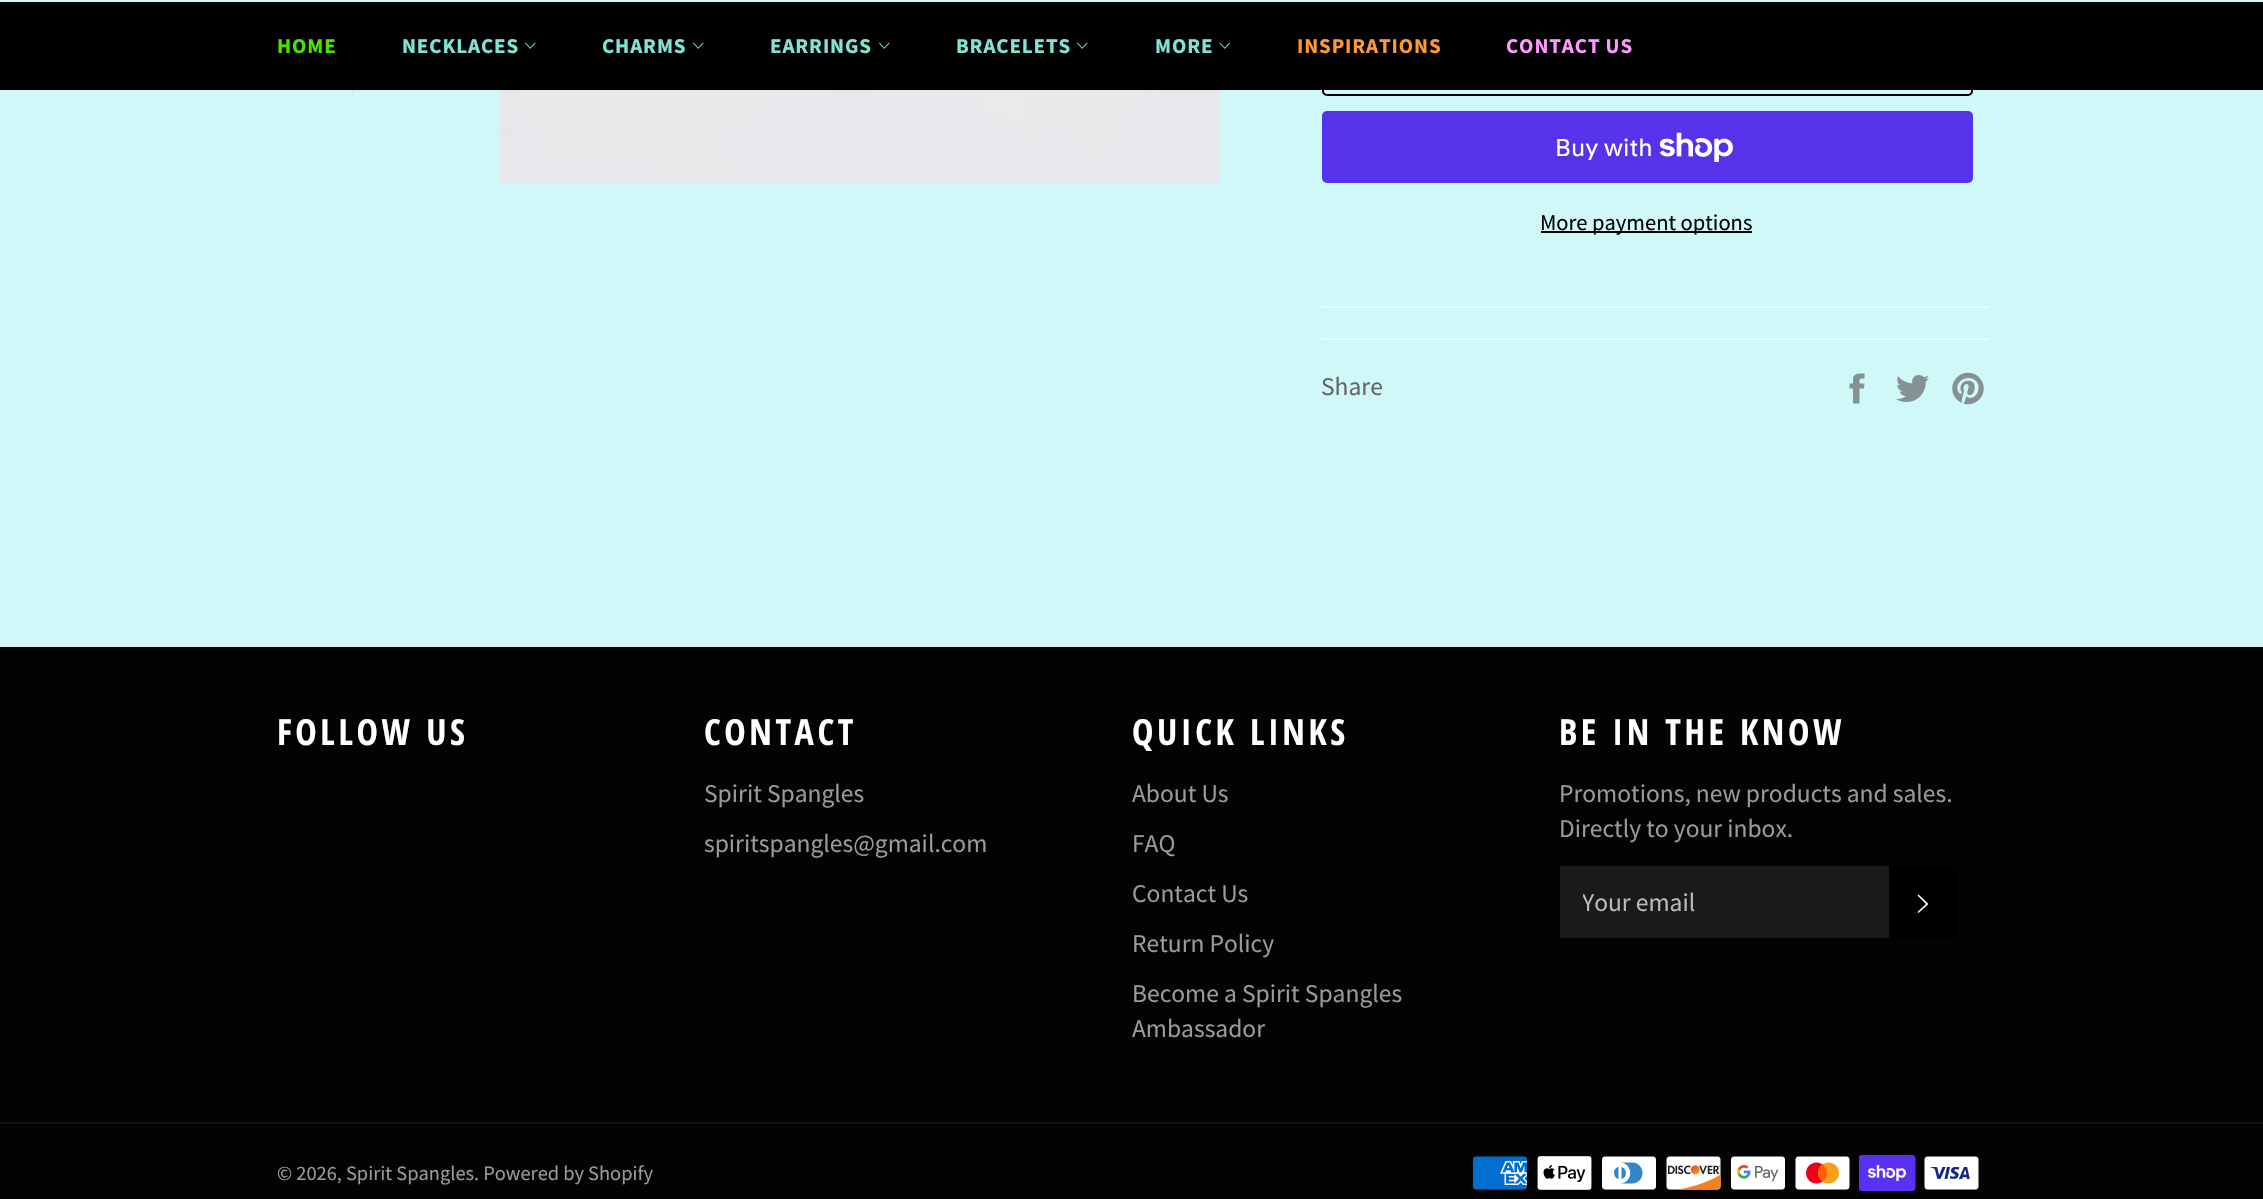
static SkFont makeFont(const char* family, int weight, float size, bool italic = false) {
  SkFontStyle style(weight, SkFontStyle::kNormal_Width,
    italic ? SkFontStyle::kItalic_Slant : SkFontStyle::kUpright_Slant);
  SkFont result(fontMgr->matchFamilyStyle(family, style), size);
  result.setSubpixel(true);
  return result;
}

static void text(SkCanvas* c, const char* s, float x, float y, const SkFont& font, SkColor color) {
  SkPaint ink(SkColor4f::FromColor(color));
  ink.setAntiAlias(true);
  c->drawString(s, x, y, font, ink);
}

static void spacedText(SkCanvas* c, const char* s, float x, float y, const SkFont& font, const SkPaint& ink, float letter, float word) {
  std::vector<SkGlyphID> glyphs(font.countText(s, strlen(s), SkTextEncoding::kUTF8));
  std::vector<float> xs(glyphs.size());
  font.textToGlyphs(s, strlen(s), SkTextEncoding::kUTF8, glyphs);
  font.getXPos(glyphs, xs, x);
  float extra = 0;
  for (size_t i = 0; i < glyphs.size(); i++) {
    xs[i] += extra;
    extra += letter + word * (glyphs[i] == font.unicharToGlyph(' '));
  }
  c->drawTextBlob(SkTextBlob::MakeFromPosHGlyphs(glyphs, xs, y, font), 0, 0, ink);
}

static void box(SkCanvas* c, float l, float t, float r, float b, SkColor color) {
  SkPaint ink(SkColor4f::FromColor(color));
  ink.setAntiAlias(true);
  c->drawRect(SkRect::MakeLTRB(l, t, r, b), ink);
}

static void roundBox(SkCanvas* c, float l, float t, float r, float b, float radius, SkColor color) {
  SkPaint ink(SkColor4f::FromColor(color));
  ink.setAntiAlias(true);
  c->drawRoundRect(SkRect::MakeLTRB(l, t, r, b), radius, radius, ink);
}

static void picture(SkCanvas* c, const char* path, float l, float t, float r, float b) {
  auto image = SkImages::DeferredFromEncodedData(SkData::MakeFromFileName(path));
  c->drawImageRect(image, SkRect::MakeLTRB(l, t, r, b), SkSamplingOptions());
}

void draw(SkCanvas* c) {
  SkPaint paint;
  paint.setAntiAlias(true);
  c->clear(0xffd0f8f8);
  box(c, 0, 0, 2263, 2, 0xffcdfbfb);
  paint.setColor(0xffbbdbdb);
  c->drawPath(SkPathBuilder().moveTo(368, 70.5f).lineTo(370, 72.5f).lineTo(352.5f, 91.5f).lineTo(335, 72.5f).lineTo(337, 70.5f).lineTo(352.5f, 87).close().detach(), paint);
  paint.setStyle(SkPaint::kStroke_Style);
  paint.setStrokeWidth(2);
  paint.setColor(0xff000000);
  c->drawRoundRect(SkRect::MakeLTRB(1323, 25, 1972, 95), 4, 4, paint);
  box(c, 0, 2, 2263, 90, 0xff000000);
  SkFont face1 = makeFont("Source Sans Pro", 700, 21);
  paint.setStyle(SkPaint::kFill_Style);
  paint.setColor(0xff4ae200);
  spacedText(c, "HOME", 277, 53, face1, paint, 0.9f, 0);
  paint.setColor(0xff80e3d3);
  spacedText(c, "NECKLACES", 402, 53, face1, paint, 0.9f, 0);
  picture(c, "img_01.png", 525, 42, 536, 49);
  spacedText(c, "CHARMS", 602, 53, face1, paint, 0.9f, 0);
  picture(c, "img_01.png", 693, 42, 704, 49);
  spacedText(c, "EARRINGS", 770, 53, face1, paint, 0.9f, 0);
  picture(c, "img_01.png", 879, 42, 890, 49);
  spacedText(c, "BRACELETS", 956, 53, face1, paint, 0.9f, 0);
  picture(c, "img_01.png", 1077, 42, 1088, 49);
  spacedText(c, "MORE", 1155, 53, face1, paint, 0.9f, 0);
  picture(c, "img_02.png", 1219, 42, 1230, 49);
  paint.setColor(0xffff9933);
  spacedText(c, "INSPIRATIONS", 1297, 53, face1, paint, 0.9f, 0);
  paint.setColor(0xffff99ff);
  spacedText(c, "CONTACT US", 1506, 53, face1, paint, 0.9f, 0);
  picture(c, "img_03.png", 499, 90, 1220, 183);
  roundBox(c, 1322, 111, 1973, 183, 5, 0xff5433eb);
  SkFont face2 = makeFont("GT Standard", 400, 24);
  text(c, "Buy with", 1555, 156, face2, 0xffffffff);
  picture(c, "img_04.png", 1659, 132, 1733, 162);
  box(c, 1541, 231, 1752, 233, 0xff000000);
  SkFont face3 = makeFont("Source Sans Pro", 400, 22.5f);
  text(c, "More payment options", 1540, 230, face3, 0xff000000);
  box(c, 1322, 306, 1988, 308, 0xffe5fdfd);
  box(c, 1322, 338, 1988, 340, 0xffe5fdfd);
  SkFont face4 = makeFont("Source Sans Pro", 400, 25.5f);
  text(c, "Share", 1321, 395, face4, 0xff666666);
  picture(c, "img_05.png", 1849, 373, 1865, 404);
  picture(c, "img_06.png", 1896, 375, 1929, 402);
  picture(c, "img_07.png", 1952, 372, 1984, 405);
  box(c, 0, 647, 2263, 1199, 0xff030303);
  SkFont face5 = makeFont("Open Sans Condensed", 700, 36);
  paint.setColor(0xffffffff);
  spacedText(c, "FOLLOW US", 277, 745, face5, paint, 3.6f, 0);
  spacedText(c, "CONTACT", 704, 745, face5, paint, 3.6f, 0);
  text(c, "Spirit Spangles", 704, 802, face4, 0xff9a9a9a);
  text(c, "spiritspangles@gmail.com", 704, 852, face4, 0xff9a9a9a);
  spacedText(c, "QUICK LINKS", 1132, 745, face5, paint, 3.6f, 0);
  text(c, "About Us", 1132, 802, face4, 0xff9a9a9a);
  text(c, "FAQ", 1132, 852, face4, 0xff9a9a9a);
  text(c, "Contact Us", 1132, 902, face4, 0xff9a9a9a);
  text(c, "Return Policy", 1132, 952, face4, 0xff9a9a9a);
  text(c, "Become a Spirit Spangles", 1132, 1002, face4, 0xff9a9a9a);
  text(c, "Ambassador", 1132, 1037, face4, 0xff9a9a9a);
  spacedText(c, "BE IN THE KNOW", 1559, 745, face5, paint, 3.6f, 0);
  text(c, "Promotions, new products and sales.", 1559, 802, face4, 0xff9a9a9a);
  text(c, "Directly to your inbox.", 1559, 837, face4, 0xff9a9a9a);
  box(c, 1560, 866, 1889, 938, 0xff1a1a1a);
  c->save();
  c->clipRect(SkRect::MakeLTRB(1583, 885, 1866, 918));
  text(c, "Your email", 1582, 911, face4, 0xffbababa);
  c->restore();
  box(c, 1889, 866, 1958, 938, 0xff000000);
  c->drawPath(SkPathBuilder().moveTo(1917.5f, 895.5f).lineTo(1918.5f, 894.5f).lineTo(1928.5f, 904).lineTo(1918.5f, 913).lineTo(1917.5f, 912).lineTo(1926, 904).close().detach(), paint);
  box(c, 0, 1122, 2263, 1124, 0xff101010);
  SkFont face6 = makeFont("Source Sans Pro", 400, 20.4f);
  text(c, "© 2026, Spirit Spangles. Powered by Shopify", 277, 1180, face6, 0xff9a9a9a);
  picture(c, "img_08.png", 1473, 1156, 1527, 1190);
  picture(c, "img_09.png", 1537, 1156, 1592, 1190);
  picture(c, "img_10.png", 1602, 1156, 1656, 1190);
  picture(c, "img_11.png", 1666, 1156, 1721, 1190);
  picture(c, "img_12.png", 1731, 1156, 1785, 1190);
  picture(c, "img_13.png", 1795, 1156, 1850, 1190);
  picture(c, "img_14.png", 1859, 1155, 1916, 1191);
  picture(c, "img_15.png", 1924, 1156, 1979, 1190);
}
